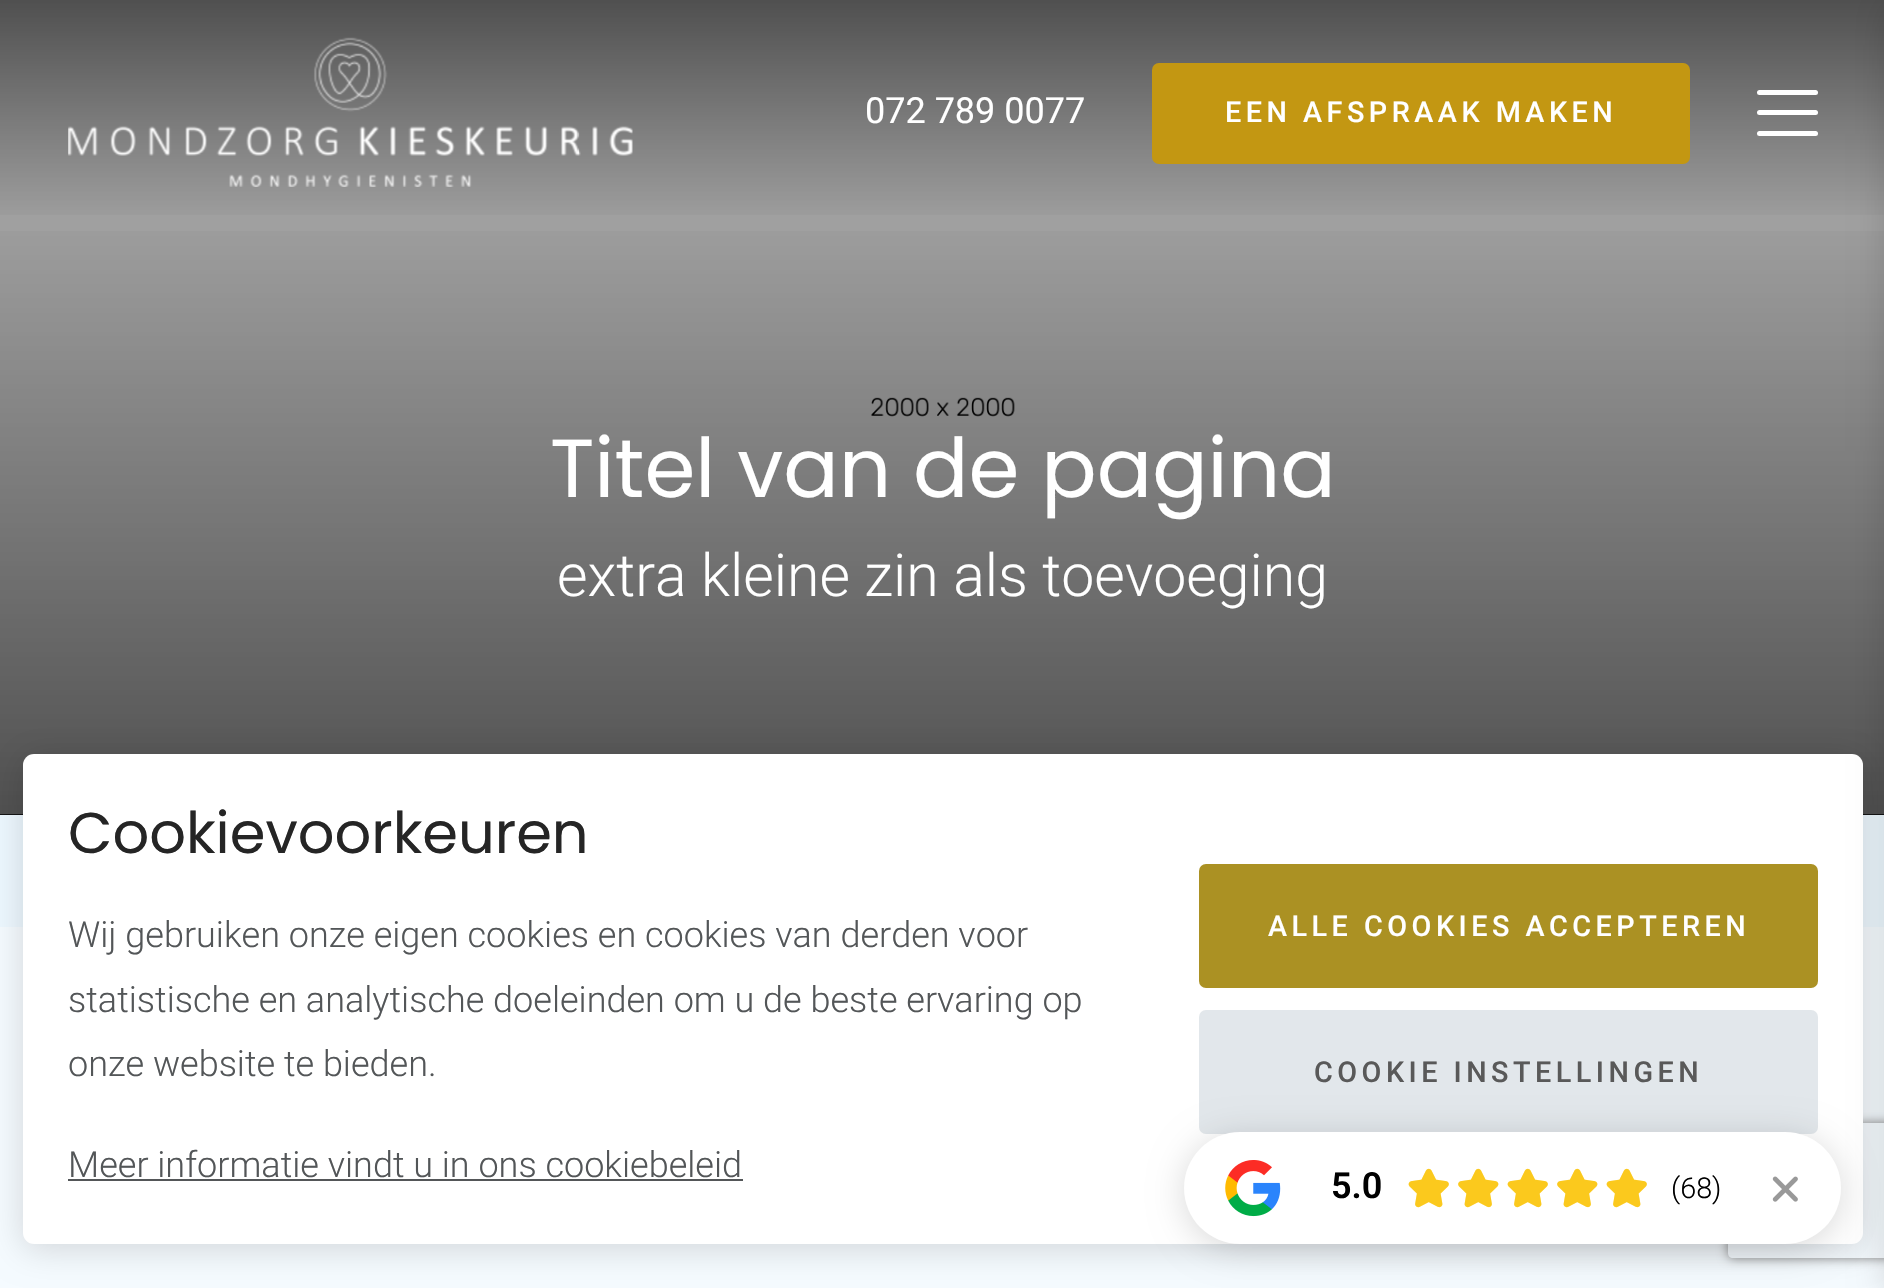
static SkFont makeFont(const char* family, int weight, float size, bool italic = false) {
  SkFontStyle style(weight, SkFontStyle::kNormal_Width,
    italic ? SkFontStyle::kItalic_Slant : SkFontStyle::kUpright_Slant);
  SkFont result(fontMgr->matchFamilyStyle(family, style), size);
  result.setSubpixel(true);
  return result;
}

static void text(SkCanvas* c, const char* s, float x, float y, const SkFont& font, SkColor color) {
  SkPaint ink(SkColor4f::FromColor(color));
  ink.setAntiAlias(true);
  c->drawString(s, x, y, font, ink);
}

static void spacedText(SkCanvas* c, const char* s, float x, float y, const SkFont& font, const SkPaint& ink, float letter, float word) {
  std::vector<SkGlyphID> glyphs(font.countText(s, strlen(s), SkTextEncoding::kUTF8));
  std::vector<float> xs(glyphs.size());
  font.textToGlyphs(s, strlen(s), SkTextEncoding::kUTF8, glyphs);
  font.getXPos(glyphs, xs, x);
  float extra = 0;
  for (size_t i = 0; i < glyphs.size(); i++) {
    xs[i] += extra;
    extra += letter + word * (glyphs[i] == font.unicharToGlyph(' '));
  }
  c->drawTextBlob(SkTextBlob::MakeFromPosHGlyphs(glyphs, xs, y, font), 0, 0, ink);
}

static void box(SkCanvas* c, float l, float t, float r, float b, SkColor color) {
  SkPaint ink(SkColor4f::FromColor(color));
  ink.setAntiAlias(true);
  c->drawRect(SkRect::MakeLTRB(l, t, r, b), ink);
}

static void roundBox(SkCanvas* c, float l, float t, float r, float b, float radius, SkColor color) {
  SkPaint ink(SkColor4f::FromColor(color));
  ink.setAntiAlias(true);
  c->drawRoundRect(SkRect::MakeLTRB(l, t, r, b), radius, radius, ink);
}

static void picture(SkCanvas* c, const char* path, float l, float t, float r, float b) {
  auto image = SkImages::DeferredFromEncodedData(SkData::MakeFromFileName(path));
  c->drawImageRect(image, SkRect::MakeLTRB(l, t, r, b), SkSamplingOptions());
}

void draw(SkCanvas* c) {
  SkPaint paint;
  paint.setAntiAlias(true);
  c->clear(0xffedf8ff);
  box(c, 0, 0, 1884, 815, 0xff000000);
  picture(c, "img_02.png", 0, 0, 1884, 815);
  {
    const SkColor colors[] = {0x80000000, 0x00000000};
    const float stops[] = {0, 1};
    const SkPoint ends[] = {{943, 0}, {943, 225}};
    paint.setShader(SkGradientShader::MakeLinear(ends, colors, stops, 2, SkTileMode::kClamp));
    paint.setAlpha(255);
  }
  c->drawRect(SkRect::MakeLTRB(0, 0, 1884, 215), paint);
  picture(c, "img_01.png", 68, 37, 633, 187);
  SkFont face1 = makeFont("Roboto", 400, 36);
  text(c, "072 789 0077", 865, 123, face1, 0xffffffff);
  roundBox(c, 1152, 63, 1690, 164, 7, 0xffc39712);
  SkFont face2 = makeFont("Roboto", 500, 28.75f);
  paint.setShader(nullptr);
  paint.setColor(0xffffffff);
  spacedText(c, "EEN AFSPRAAK MAKEN", 1225, 122, face2, paint, 4.5f, 0);
  roundBox(c, 1757, 90, 1818, 95, 2.5f, 0xffffffff);
  roundBox(c, 1757, 110, 1818, 115, 2.5f, 0xffffffff);
  roundBox(c, 1757, 131, 1818, 136, 2.5f, 0xffffffff);
  {
    const SkColor colors[] = {0x00000000, 0x80000000};
    const float stops[] = {0, 1};
    const SkPoint ends[] = {{943, 205}, {943, 817}};
    paint.setShader(SkGradientShader::MakeLinear(ends, colors, stops, 2, SkTileMode::kClamp));
    paint.setAlpha(255);
  }
  c->drawRect(SkRect::MakeLTRB(0, 231, 1884, 815), paint);
  SkFont face3 = makeFont("Poppins", 400, 82);
  text(c, "Titel van de pagina", 550, 497, face3, 0xffffffff);
  SkFont face4 = makeFont("Roboto", 300, 59);
  text(c, "extra kleine zin als toevoeging", 557, 596, face4, 0xffffffff);
  box(c, 0, 927, 1884, 1288, 0xfff5fbff);
  paint.setShader(nullptr);
  paint.setColor(0x26000000);
  paint.setMaskFilter(SkMaskFilter::MakeBlur(kNormal_SkBlurStyle, 17));
  c->drawRoundRect(SkRect::MakeLTRB(23, 758, 1863, 1249), 11, 11, paint);
  paint.setMaskFilter(nullptr);
  c->save();
  c->clipPath(SkPathBuilder(SkPathFillType::kEvenOdd).moveTo(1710, 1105).lineTo(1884, 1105).lineTo(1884, 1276).lineTo(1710, 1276).close().moveTo(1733, 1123).lineTo(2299, 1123).cubicTo(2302, 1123, 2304, 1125, 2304, 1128).lineTo(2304, 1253).cubicTo(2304, 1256, 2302, 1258, 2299, 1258).lineTo(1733, 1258).cubicTo(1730, 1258, 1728, 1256, 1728, 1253).lineTo(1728, 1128).cubicTo(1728, 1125, 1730, 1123, 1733, 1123).close().detach(), true);
  paint.setColor(0xff808080);
  paint.setMaskFilter(SkMaskFilter::MakeBlur(kNormal_SkBlurStyle, 5.5f));
  c->drawRoundRect(SkRect::MakeLTRB(1728, 1123, 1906, 1258), 5, 5, paint);
  paint.setMaskFilter(nullptr);
  c->restore();
  roundBox(c, 23, 754, 1863, 1244, 11, 0xffffffff);
  SkFont face5 = makeFont("Poppins", 400, 57.5f);
  text(c, "Cookievoorkeuren", 68, 853, face5, 0xff252525);
  SkFont face6 = makeFont("Roboto", 300, 36);
  text(c, "Wij gebruiken onze eigen cookies en cookies van derden voor", 68, 947, face6, 0xff535658);
  text(c, "statistische en analytische doeleinden om u de beste ervaring op", 68, 1012, face6, 0xff535658);
  text(c, "onze website te bieden.", 68, 1076, face6, 0xff535658);
  text(c, "Meer informatie vindt u in ons cookiebeleid", 68, 1177, face6, 0xff535658);
  box(c, 68, 1179, 743, 1181, 0xff535658);
  roundBox(c, 1199, 864, 1818, 988, 7, 0xffab9123);
  paint.setColor(0xffffffff);
  spacedText(c, "ALLE COOKIES ACCEPTEREN", 1268, 936, face2, paint, 4.5f, 0);
  roundBox(c, 1199, 1010, 1818, 1134, 7, 0xffe2e7eb);
  paint.setColor(0xff595959);
  spacedText(c, "COOKIE INSTELLINGEN", 1314, 1082, face2, paint, 4.5f, 0);
  paint.setColor(0x26000000);
  paint.setMaskFilter(SkMaskFilter::MakeBlur(kNormal_SkBlurStyle, 17));
  c->drawRoundRect(SkRect::MakeLTRB(1184, 1136, 1841, 1249), 56.5f, 56.5f, paint);
  paint.setMaskFilter(nullptr);
  roundBox(c, 1184, 1132, 1841, 1244, 56, 0xffffffff);
  picture(c, "img_03.png", 1225, 1160, 1281, 1217);
  SkFont face7 = makeFont("Roboto", 600, 36);
  text(c, "5.0", 1331, 1198, face7, 0xff000000);
  picture(c, "img_04.png", 1408, 1168, 1449, 1208);
  picture(c, "img_05.png", 1408, 1168, 1449, 1208);
  picture(c, "img_07.png", 1458, 1168, 1499, 1208);
  picture(c, "img_06.png", 1458, 1168, 1499, 1208);
  picture(c, "img_04.png", 1507, 1168, 1548, 1208);
  picture(c, "img_05.png", 1507, 1168, 1548, 1208);
  picture(c, "img_07.png", 1557, 1168, 1598, 1208);
  picture(c, "img_06.png", 1557, 1168, 1598, 1208);
  picture(c, "img_04.png", 1606, 1168, 1647, 1208);
  picture(c, "img_05.png", 1606, 1168, 1647, 1208);
  SkFont face8 = makeFont("Roboto", 300, 28.75f);
  text(c, "(68)", 1671, 1198, face8, 0xff000000);
  picture(c, "img_08.png", 1772, 1176, 1798, 1202);
  paint.setMaskFilter(SkMaskFilter::MakeBlur(kNormal_SkBlurStyle, 17));
  c->drawRect(SkRect::MakeLTRB(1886, 5, 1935, 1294), paint);
  paint.setMaskFilter(nullptr);
}
